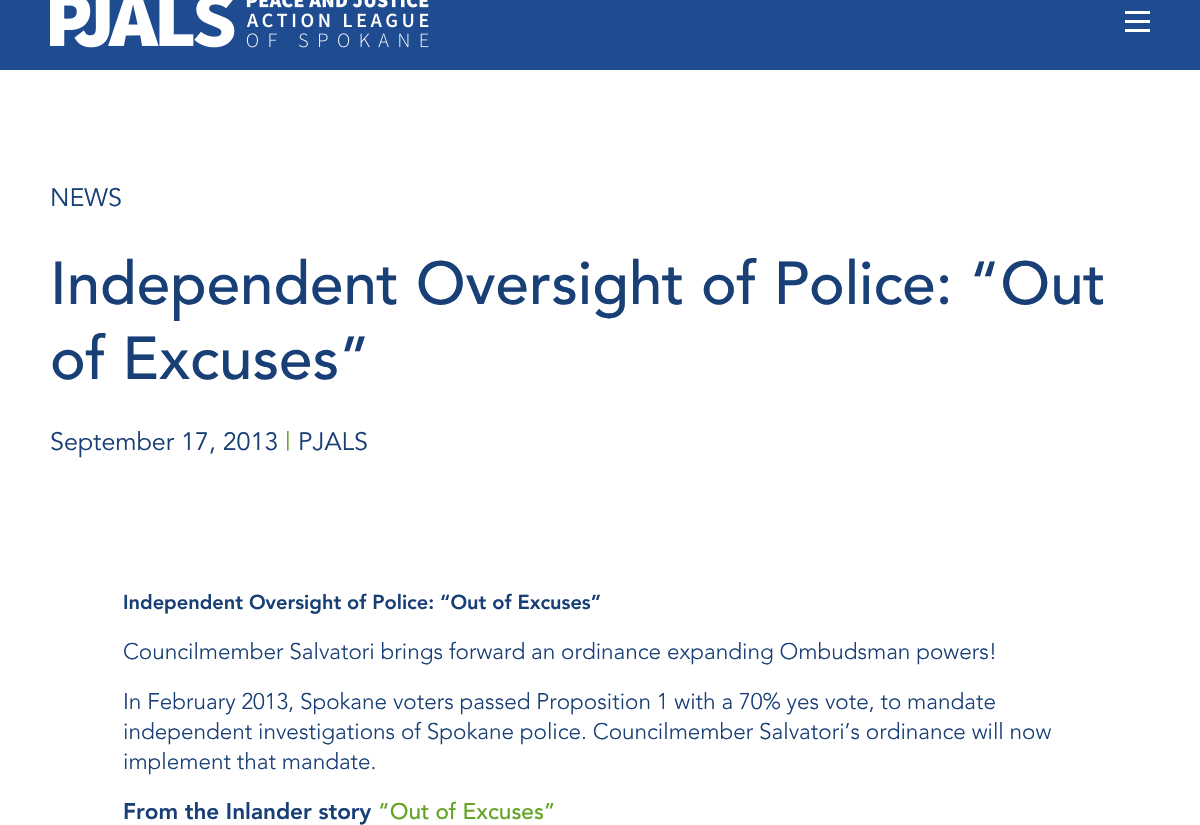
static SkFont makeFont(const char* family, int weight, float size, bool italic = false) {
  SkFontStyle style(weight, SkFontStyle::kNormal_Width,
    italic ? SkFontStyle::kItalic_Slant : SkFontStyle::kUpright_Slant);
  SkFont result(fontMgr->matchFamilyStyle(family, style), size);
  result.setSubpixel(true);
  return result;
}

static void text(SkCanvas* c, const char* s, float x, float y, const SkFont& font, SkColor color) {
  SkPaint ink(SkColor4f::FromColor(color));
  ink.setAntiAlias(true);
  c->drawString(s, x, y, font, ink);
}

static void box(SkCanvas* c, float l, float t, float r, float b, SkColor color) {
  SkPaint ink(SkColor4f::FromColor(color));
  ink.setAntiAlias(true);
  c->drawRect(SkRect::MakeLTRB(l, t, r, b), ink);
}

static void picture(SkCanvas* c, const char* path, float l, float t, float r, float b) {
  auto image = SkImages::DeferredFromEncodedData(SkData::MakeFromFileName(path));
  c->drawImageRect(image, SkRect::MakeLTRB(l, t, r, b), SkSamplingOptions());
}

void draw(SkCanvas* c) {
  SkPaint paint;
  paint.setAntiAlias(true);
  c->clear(0xffffffff);
  box(c, 0, 0, 1200, 70, 0xff1f4c90);
  picture(c, "img_01.png", 50, 0, 429, 48);
  box(c, 1125, 29, 1150, 32, 0xffffffff);
  box(c, 1125, 20, 1150, 23, 0xffffffff);
  box(c, 1125, 11, 1150, 14, 0xffffffff);
  SkFont face1 = makeFont("Avenir", 400, 25);
  text(c, "NEWS", 50, 206, face1, 0xff193f77);
  SkFont face2 = makeFont("Avenir", 500, 60);
  text(c, "Independent Oversight of Police: “Out", 50, 304, face2, 0xff193f77);
  text(c, "of Excuses”", 50, 379, face2, 0xff193f77);
  text(c, "September 17, 2013", 50, 450, face1, 0xff193f77);
  text(c, "|", 285, 450, face1, 0xff64a526);
  text(c, "PJALS", 298, 450, face1, 0xff193f77);
  SkFont face3 = makeFont("Avenir", 900, 20);
  text(c, "Independent Oversight of Police: “Out of Excuses”", 123, 609, face3, 0xff193f77);
  SkFont face4 = makeFont("Avenir", 300, 22.5f);
  text(c, "Councilmember Salvatori brings forward an ordinance expanding Ombudsman powers!", 123, 659, face4, 0xff193f77);
  text(c, "In February 2013, Spokane voters passed Proposition 1 with a 70% yes vote, to mandate", 123, 709, face4, 0xff193f77);
  text(c, "independent investigations of Spokane police. Councilmember Salvatori’s ordinance will now", 123, 739, face4, 0xff193f77);
  text(c, "implement that mandate.", 123, 769, face4, 0xff193f77);
  SkFont face5 = makeFont("Avenir", 900, 22.5f);
  text(c, "From the Inlander story", 123, 819, face5, 0xff193f77);
  SkFont face6 = makeFont("Avenir", 500, 22.5f);
  text(c, "“Out of Excuses”", 378, 819, face6, 0xff64a526);
}
